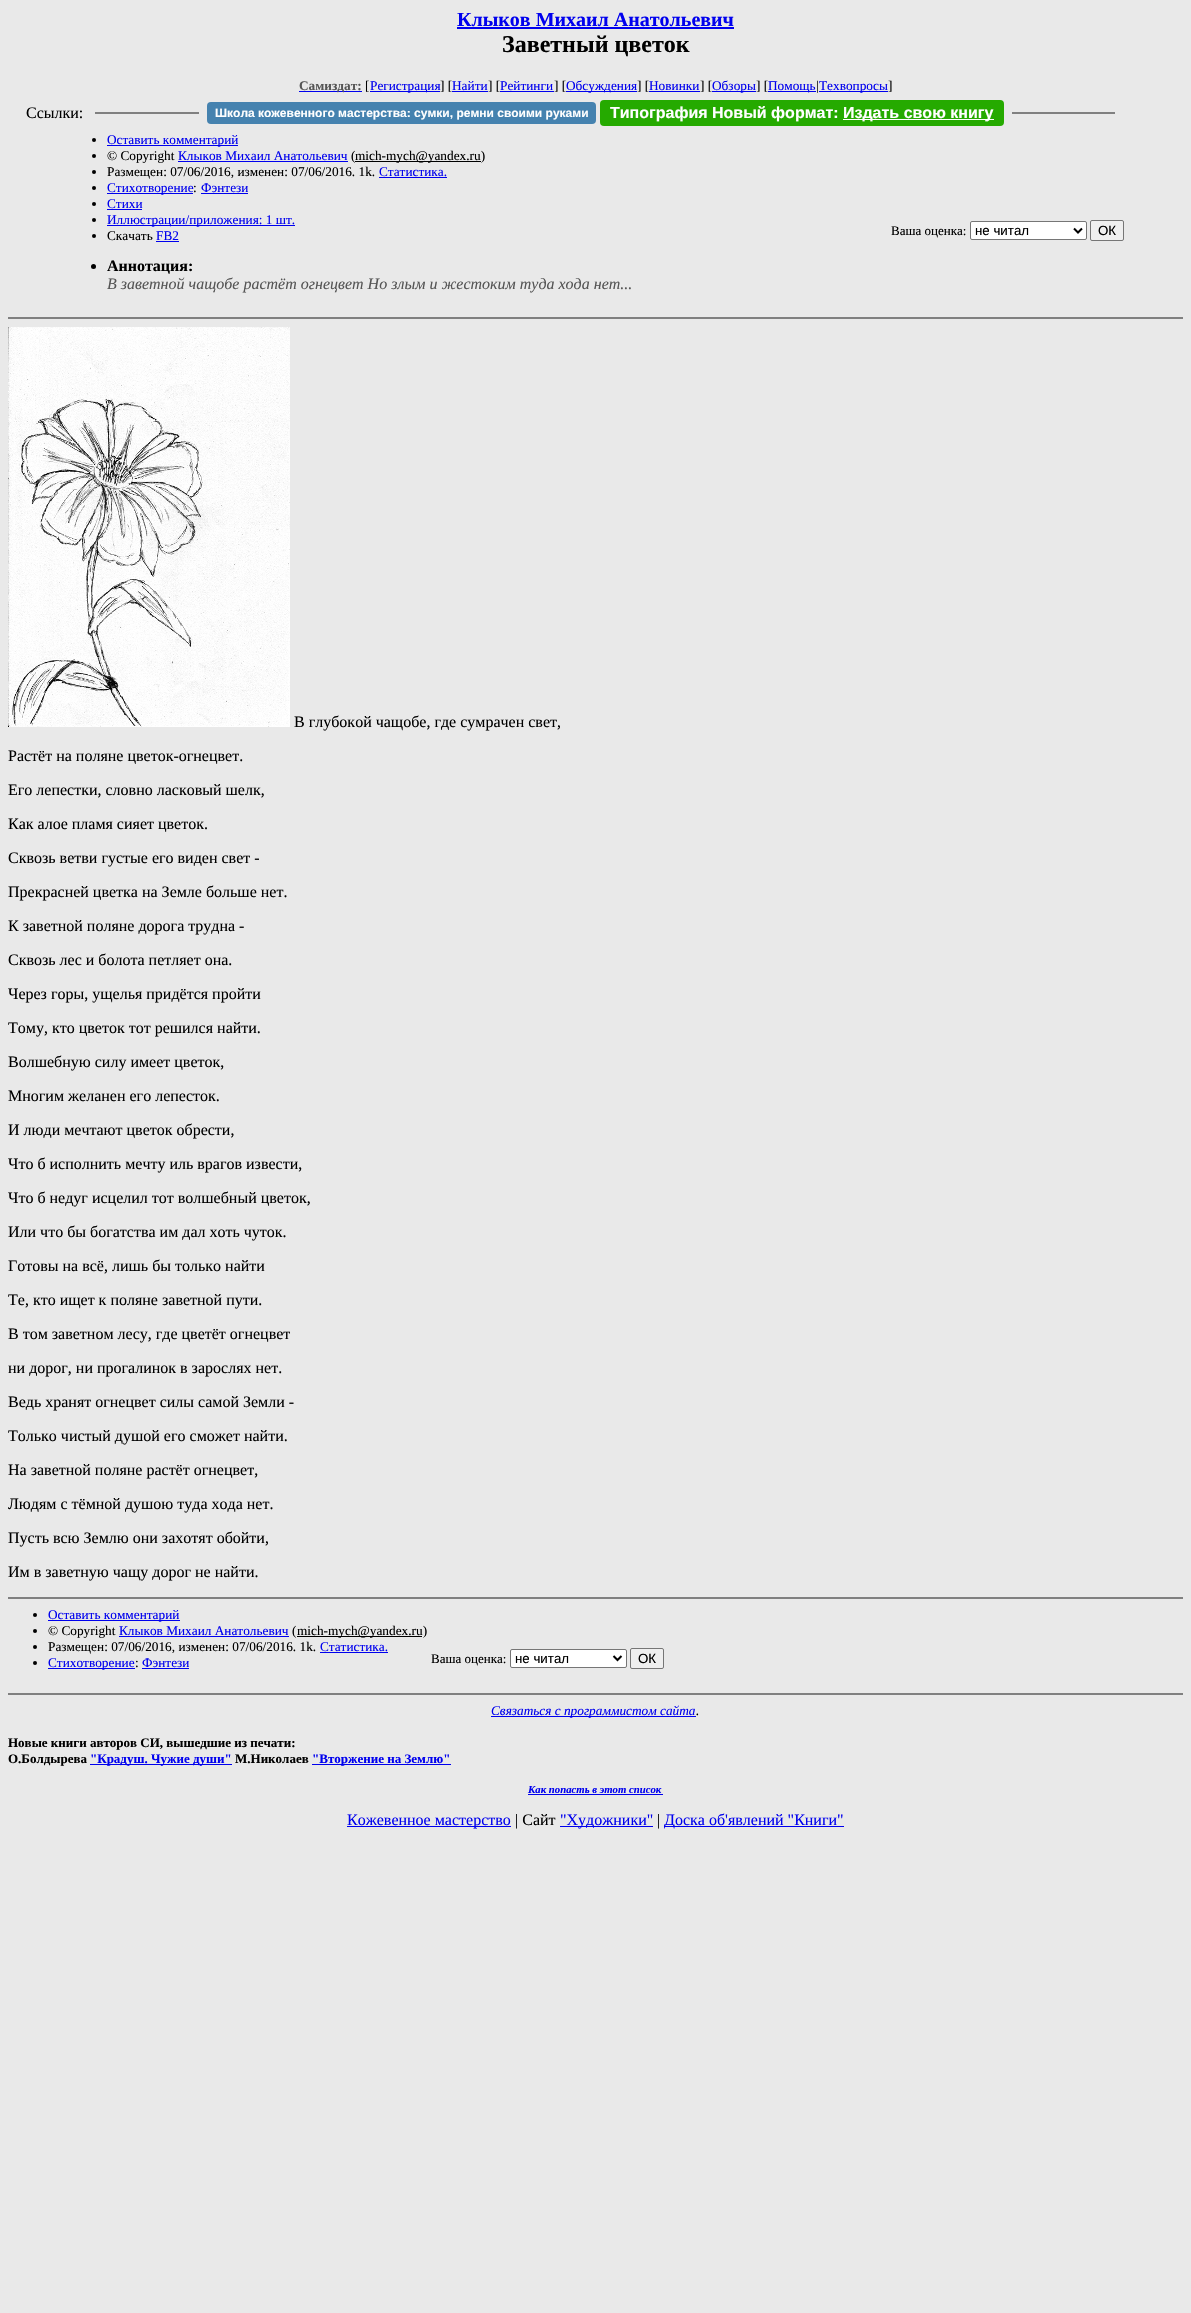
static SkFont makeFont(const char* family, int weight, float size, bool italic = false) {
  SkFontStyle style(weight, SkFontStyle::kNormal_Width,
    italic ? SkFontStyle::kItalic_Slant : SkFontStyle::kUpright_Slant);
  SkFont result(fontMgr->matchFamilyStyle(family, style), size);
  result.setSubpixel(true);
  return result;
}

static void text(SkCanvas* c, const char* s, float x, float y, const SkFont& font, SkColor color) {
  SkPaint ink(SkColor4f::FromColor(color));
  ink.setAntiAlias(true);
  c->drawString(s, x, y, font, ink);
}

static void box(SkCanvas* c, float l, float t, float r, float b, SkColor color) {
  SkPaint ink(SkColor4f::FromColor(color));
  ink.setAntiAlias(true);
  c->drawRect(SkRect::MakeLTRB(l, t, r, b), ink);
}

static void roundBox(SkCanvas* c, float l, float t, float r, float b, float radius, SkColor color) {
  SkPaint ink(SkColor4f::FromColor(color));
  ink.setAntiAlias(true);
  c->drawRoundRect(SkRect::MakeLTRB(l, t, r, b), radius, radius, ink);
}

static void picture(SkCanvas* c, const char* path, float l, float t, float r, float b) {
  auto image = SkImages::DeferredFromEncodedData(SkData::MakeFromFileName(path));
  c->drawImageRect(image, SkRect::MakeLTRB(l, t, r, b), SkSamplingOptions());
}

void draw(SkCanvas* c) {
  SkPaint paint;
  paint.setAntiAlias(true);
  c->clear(0xffe9e9e9);
  SkFont face1 = makeFont("Liberation Serif", 700, 20);
  text(c, "Клыков Михаил Анатольевич", 457, 26, face1, 0xff0000ee);
  box(c, 457, 27, 734, 29, 0xff0000ee);
  SkFont face2 = makeFont("Liberation Serif", 700, 24);
  text(c, "Заветный цветок", 502, 52, face2, 0xff000000);
  box(c, 299, 91, 362, 92, 0xff0000ee);
  SkFont face3 = makeFont("Liberation Serif", 700, 13.3f);
  text(c, "Самиздат:", 299, 90, face3, 0xff555555);
  SkFont face4 = makeFont("Liberation Serif", 400, 13.3f);
  text(c, "[", 365, 90, face4, 0xff000000);
  box(c, 370, 91, 440, 92, 0xff0000ee);
  text(c, "Регистрация", 370, 90, face4, 0xff0000ee);
  text(c, "] [", 440, 90, face4, 0xff000000);
  box(c, 452, 91, 488, 92, 0xff0000ee);
  text(c, "Найти", 452, 90, face4, 0xff0000ee);
  text(c, "] [", 488, 90, face4, 0xff000000);
  box(c, 500, 91, 554, 92, 0xff0000ee);
  text(c, "Рейтинги", 500, 90, face4, 0xff0000ee);
  text(c, "] [", 554, 90, face4, 0xff000000);
  box(c, 566, 91, 637, 92, 0xff0000ee);
  text(c, "Обсуждения", 566, 90, face4, 0xff0000ee);
  text(c, "] [", 637, 90, face4, 0xff000000);
  box(c, 649, 91, 700, 92, 0xff0000ee);
  text(c, "Новинки", 649, 90, face4, 0xff0000ee);
  text(c, "] [", 700, 90, face4, 0xff000000);
  box(c, 712, 91, 756, 92, 0xff0000ee);
  text(c, "Обзоры", 712, 90, face4, 0xff0000ee);
  text(c, "] [", 756, 90, face4, 0xff000000);
  box(c, 768, 91, 816, 92, 0xff0000ee);
  text(c, "Помощь", 768, 90, face4, 0xff0000ee);
  text(c, "|", 816, 90, face4, 0xff000000);
  box(c, 819, 91, 888, 92, 0xff0000ee);
  text(c, "Техвопросы", 819, 90, face4, 0xff0000ee);
  text(c, "]", 888, 90, face4, 0xff000000);
  SkFont face5 = makeFont("Liberation Serif", 400, 16);
  text(c, "Ссылки:", 26, 118, face5, 0xff000000);
  box(c, 95, 112, 199, 114, 0xff808080);
  roundBox(c, 207, 102, 596, 124, 4, 0xff4582af);
  SkFont face6 = makeFont("Liberation Sans", 700, 12);
  text(c, "Школа кожевенного мастерства: сумки, ремни своими руками", 215, 117, face6, 0xffffffff);
  roundBox(c, 600, 100, 1004, 126, 4, 0xff25aa00);
  SkFont face7 = makeFont("Liberation Sans", 700, 16);
  text(c, "Типография Новый формат:", 610, 118, face7, 0xffffffff);
  box(c, 843, 119, 994, 120, 0xffffffff);
  text(c, "Издать свою книгу", 843, 118, face7, 0xffffffff);
  box(c, 1012, 112, 1115, 114, 0xff808080);
  paint.setColor(0xff000000);
  c->drawCircle(94, 140, 2, paint);
  box(c, 107, 145, 238, 146, 0xff0000ee);
  text(c, "Оставить комментарий", 107, 144, face4, 0xff0000ee);
  c->drawCircle(94, 156, 2, paint);
  text(c, "© Copyright", 107, 160, face4, 0xff000000);
  text(c, "Клыков Михаил Анатольевич", 178, 160, face4, 0xff0000ee);
  box(c, 178, 161, 348, 162, 0xff0000ee);
  text(c, "(", 351, 160, face4, 0xff000000);
  box(c, 355, 161, 481, 162, 0xff000000);
  text(c, "mich-mych@yandex.ru)", 355, 160, face4, 0xff000000);
  c->drawCircle(94, 172, 2, paint);
  text(c, "Размещен: 07/06/2016, изменен: 07/06/2016. 1k.", 107, 176, face4, 0xff000000);
  text(c, "Статистика.", 379, 176, face4, 0xff0000ee);
  box(c, 379, 177, 447, 178, 0xff0000ee);
  c->drawCircle(94, 188, 2, paint);
  box(c, 107, 193, 193, 194, 0xff0000ee);
  text(c, "Стихотворение", 107, 192, face4, 0xff0000ee);
  text(c, ":", 193, 192, face4, 0xff000000);
  text(c, "Фэнтези", 201, 192, face4, 0xff0000ee);
  box(c, 201, 193, 248, 194, 0xff0000ee);
  c->drawCircle(94, 204, 2, paint);
  text(c, "Стихи", 107, 208, face4, 0xff0000ee);
  box(c, 107, 209, 142, 210, 0xff0000ee);
  c->drawCircle(94, 220, 2, paint);
  box(c, 107, 225, 295, 226, 0xff0000ee);
  text(c, "Иллюстрации/приложения: 1 шт.", 107, 224, face4, 0xff0000ee);
  c->drawCircle(94, 236, 2, paint);
  text(c, "Скачать", 107, 240, face4, 0xff000000);
  text(c, "FB2", 156, 240, face4, 0xff0000ee);
  box(c, 156, 241, 179, 242, 0xff0000ee);
  SkFont face8 = makeFont("Liberation Serif", 400, 13);
  text(c, "Ваша оценка:", 891, 235, face8, 0xff000000);
  paint.setColor(0xffffffff);
  c->drawRoundRect(SkRect::MakeLTRB(970.5f, 221.5f, 1086.5f, 239.5f), 1.5f, 1.5f, paint);
  paint.setStyle(SkPaint::kStroke_Style);
  paint.setStrokeWidth(1);
  paint.setColor(0xff767676);
  c->drawRoundRect(SkRect::MakeLTRB(970.5f, 221.5f, 1086.5f, 239.5f), 1.5f, 1.5f, paint);
  paint.setStrokeWidth(2);
  paint.setColor(0xff000000);
  c->drawPath(SkPathBuilder().moveTo(1074, 228.5f).lineTo(1078, 232.5f).lineTo(1082, 228.5f).detach(), paint);
  SkFont face9 = makeFont("Liberation Sans", 400, 13.3f);
  text(c, "не читал", 975, 235, face9, 0xff000000);
  paint.setStyle(SkPaint::kFill_Style);
  paint.setColor(0xffefefef);
  c->drawRoundRect(SkRect::MakeLTRB(1090.5f, 220.5f, 1123.5f, 240.5f), 1.5f, 1.5f, paint);
  paint.setStyle(SkPaint::kStroke_Style);
  paint.setStrokeWidth(1);
  paint.setColor(0xff767676);
  c->drawRoundRect(SkRect::MakeLTRB(1090.5f, 220.5f, 1123.5f, 240.5f), 1.5f, 1.5f, paint);
  text(c, "ОК", 1098, 235, face9, 0xff000000);
  paint.setStyle(SkPaint::kFill_Style);
  paint.setColor(0xff000000);
  c->drawCircle(93.5f, 266.5f, 2.5f, paint);
  SkFont face10 = makeFont("Liberation Serif", 700, 16);
  text(c, "Аннотация:", 107, 271, face10, 0xff000000);
  SkFont face11 = makeFont("Liberation Serif", 400, 16, true);
  text(c, "В заветной чащобе растёт огнецвет Но злым и жестоким туда хода нет...", 107, 289, face11, 0xff555555);
  box(c, 8, 317, 1183, 319, 0xff808080);
  picture(c, "img_01.png", 8, 327, 290, 727);
  text(c, "В глубокой чащобе, где сумрачен свет,", 294, 727, face5, 0xff000000);
  text(c, "Растёт на поляне цветок-огнецвет.", 8, 761, face5, 0xff000000);
  text(c, "Его лепестки, словно ласковый шелк,", 8, 795, face5, 0xff000000);
  text(c, "Как алое пламя сияет цветок.", 8, 829, face5, 0xff000000);
  text(c, "Сквозь ветви густые его виден свет -", 8, 863, face5, 0xff000000);
  text(c, "Прекрасней цветка на Земле больше нет.", 8, 897, face5, 0xff000000);
  text(c, "К заветной поляне дорога трудна -", 8, 931, face5, 0xff000000);
  text(c, "Сквозь лес и болота петляет она.", 8, 965, face5, 0xff000000);
  text(c, "Через горы, ущелья придётся пройти", 8, 999, face5, 0xff000000);
  text(c, "Тому, кто цветок тот решился найти.", 8, 1033, face5, 0xff000000);
  text(c, "Волшебную силу имеет цветок,", 8, 1067, face5, 0xff000000);
  text(c, "Многим желанен его лепесток.", 8, 1101, face5, 0xff000000);
  text(c, "И люди мечтают цветок обрести,", 8, 1135, face5, 0xff000000);
  text(c, "Что б исполнить мечту иль врагов извести,", 8, 1169, face5, 0xff000000);
  text(c, "Что б недуг исцелил тот волшебный цветок,", 8, 1203, face5, 0xff000000);
  text(c, "Или что бы богатства им дал хоть чуток.", 8, 1237, face5, 0xff000000);
  text(c, "Готовы на всё, лишь бы только найти", 8, 1271, face5, 0xff000000);
  text(c, "Те, кто ищет к поляне заветной пути.", 8, 1305, face5, 0xff000000);
  text(c, "В том заветном лесу, где цветёт огнецвет", 8, 1339, face5, 0xff000000);
  text(c, "ни дорог, ни прогалинок в зарослях нет.", 8, 1373, face5, 0xff000000);
  text(c, "Ведь хранят огнецвет силы самой Земли -", 8, 1407, face5, 0xff000000);
  text(c, "Только чистый душой его сможет найти.", 8, 1441, face5, 0xff000000);
  text(c, "На заветной поляне растёт огнецвет,", 8, 1475, face5, 0xff000000);
  text(c, "Людям с тёмной душою туда хода нет.", 8, 1509, face5, 0xff000000);
  text(c, "Пусть всю Землю они захотят обойти,", 8, 1543, face5, 0xff000000);
  text(c, "Им в заветную чащу дорог не найти.", 8, 1577, face5, 0xff000000);
  box(c, 8, 1597, 1183, 1599, 0xff808080);
  c->drawCircle(35, 1615, 2, paint);
  box(c, 48, 1620, 180, 1621, 0xff0000ee);
  text(c, "Оставить комментарий", 48, 1619, face4, 0xff0000ee);
  c->drawCircle(35, 1631, 2, paint);
  text(c, "© Copyright", 48, 1635, face4, 0xff000000);
  text(c, "Клыков Михаил Анатольевич", 119, 1635, face4, 0xff0000ee);
  box(c, 119, 1636, 289, 1637, 0xff0000ee);
  text(c, "(", 292, 1635, face4, 0xff000000);
  box(c, 297, 1636, 422, 1637, 0xff000000);
  text(c, "mich-mych@yandex.ru)", 297, 1635, face4, 0xff000000);
  c->drawCircle(35, 1647, 2, paint);
  text(c, "Размещен: 07/06/2016, изменен: 07/06/2016. 1k.", 48, 1651, face4, 0xff000000);
  text(c, "Статистика.", 320, 1651, face4, 0xff0000ee);
  box(c, 320, 1652, 388, 1653, 0xff0000ee);
  c->drawCircle(35, 1663, 2, paint);
  box(c, 48, 1668, 135, 1669, 0xff0000ee);
  text(c, "Стихотворение", 48, 1667, face4, 0xff0000ee);
  text(c, ":", 135, 1667, face4, 0xff000000);
  text(c, "Фэнтези", 142, 1667, face4, 0xff0000ee);
  box(c, 142, 1668, 189, 1669, 0xff0000ee);
  text(c, "Ваша оценка:", 431, 1663, face8, 0xff000000);
  paint.setColor(0xffffffff);
  c->drawRoundRect(SkRect::MakeLTRB(510.5f, 1649.5f, 626.5f, 1667.5f), 1.5f, 1.5f, paint);
  paint.setStyle(SkPaint::kStroke_Style);
  paint.setColor(0xff767676);
  c->drawRoundRect(SkRect::MakeLTRB(510.5f, 1649.5f, 626.5f, 1667.5f), 1.5f, 1.5f, paint);
  paint.setStrokeWidth(2);
  paint.setColor(0xff000000);
  c->drawPath(SkPathBuilder().moveTo(613.5f, 1656).lineTo(617.5f, 1660).lineTo(621.5f, 1656).detach(), paint);
  text(c, "не читал", 515, 1663, face9, 0xff000000);
  paint.setStyle(SkPaint::kFill_Style);
  paint.setColor(0xffefefef);
  c->drawRoundRect(SkRect::MakeLTRB(630.5f, 1648.5f, 663.5f, 1668.5f), 1.5f, 1.5f, paint);
  paint.setStyle(SkPaint::kStroke_Style);
  paint.setStrokeWidth(1);
  paint.setColor(0xff767676);
  c->drawRoundRect(SkRect::MakeLTRB(630.5f, 1648.5f, 663.5f, 1668.5f), 1.5f, 1.5f, paint);
  text(c, "ОК", 638, 1663, face9, 0xff000000);
  box(c, 8, 1693, 1183, 1695, 0xff808080);
  box(c, 491, 1716, 696, 1717, 0xff0000ee);
  SkFont face12 = makeFont("Liberation Serif", 400, 13.3f, true);
  text(c, "Связаться с программистом сайта", 491, 1715, face12, 0xff0000ee);
  text(c, ".", 696, 1715, face12, 0xff000000);
  SkFont face13 = makeFont("Liberation Serif", 700, 13);
  text(c, "Новые книги авторов СИ, вышедшие из печати:", 8, 1747, face13, 0xff000000);
  text(c, "О.Болдырева", 8, 1763, face13, 0xff000000);
  box(c, 90, 1764, 232, 1765, 0xff0000ee);
  text(c, "\"Крадуш. Чужие души\"", 90, 1763, face13, 0xff0000ee);
  text(c, "М.Николаев", 235, 1763, face13, 0xff000000);
  box(c, 312, 1764, 451, 1765, 0xff0000ee);
  text(c, "\"Вторжение на Землю\"", 312, 1763, face13, 0xff0000ee);
  SkFont face14 = makeFont("Liberation Serif", 700, 10.75f, true);
  text(c, "Как попасть в этoт список", 528, 1793, face14, 0xff0000ee);
  box(c, 528, 1794, 663, 1795, 0xff0000ee);
  box(c, 347, 1826, 511, 1827, 0xff0000ee);
  text(c, "Кожевенное мастерство", 347, 1825, face5, 0xff0000ee);
  text(c, "| Сайт", 515, 1825, face5, 0xff000000);
  box(c, 560, 1826, 653, 1827, 0xff0000ee);
  text(c, "\"Художники\"", 560, 1825, face5, 0xff0000ee);
  text(c, "|", 657, 1825, face5, 0xff000000);
  box(c, 664, 1826, 844, 1827, 0xff0000ee);
  text(c, "Доска об'явлений \"Книги\"", 664, 1825, face5, 0xff0000ee);
}
